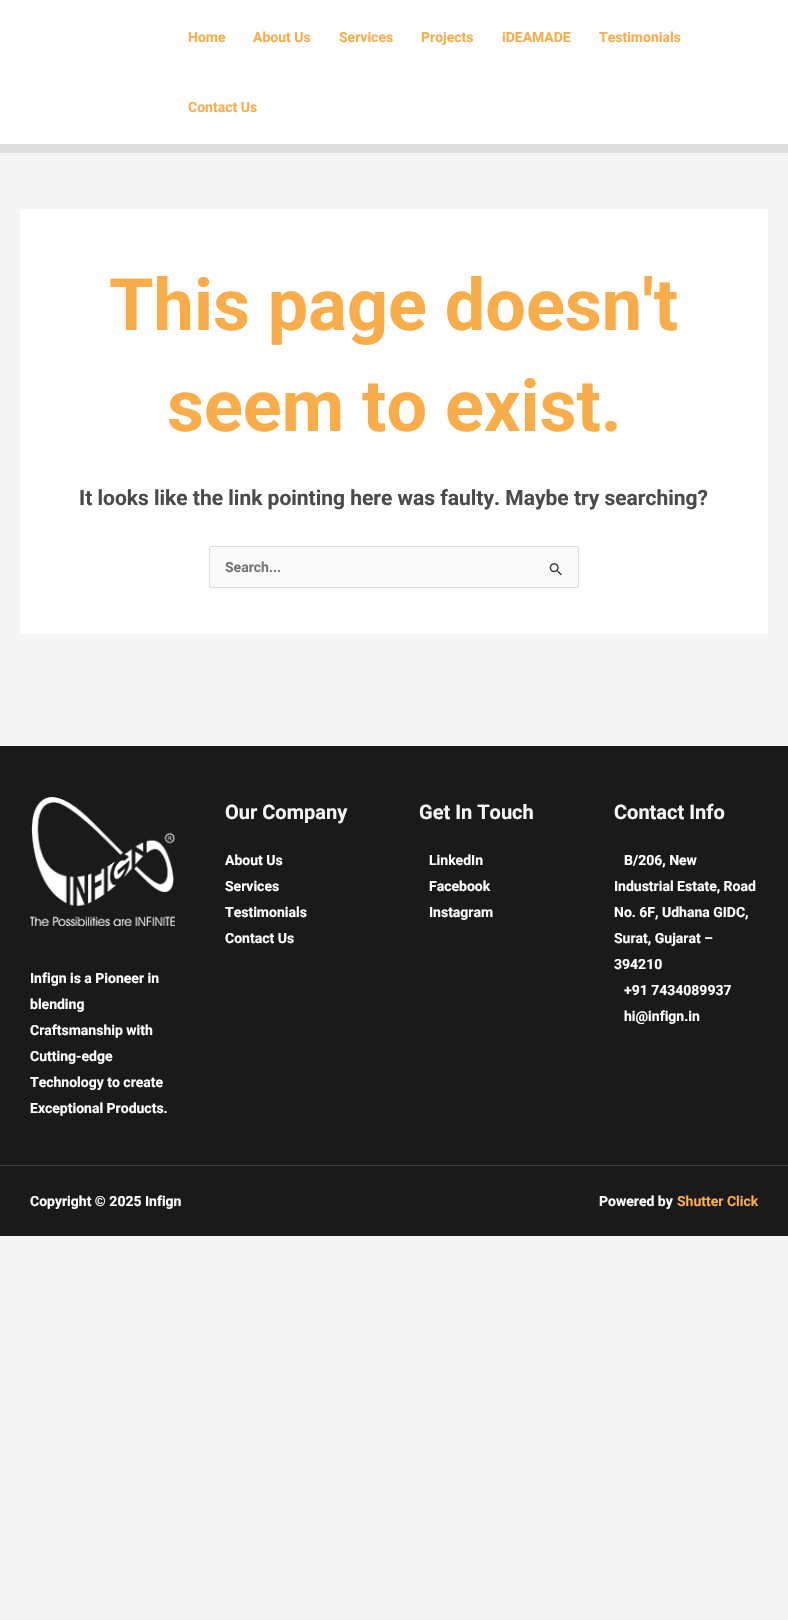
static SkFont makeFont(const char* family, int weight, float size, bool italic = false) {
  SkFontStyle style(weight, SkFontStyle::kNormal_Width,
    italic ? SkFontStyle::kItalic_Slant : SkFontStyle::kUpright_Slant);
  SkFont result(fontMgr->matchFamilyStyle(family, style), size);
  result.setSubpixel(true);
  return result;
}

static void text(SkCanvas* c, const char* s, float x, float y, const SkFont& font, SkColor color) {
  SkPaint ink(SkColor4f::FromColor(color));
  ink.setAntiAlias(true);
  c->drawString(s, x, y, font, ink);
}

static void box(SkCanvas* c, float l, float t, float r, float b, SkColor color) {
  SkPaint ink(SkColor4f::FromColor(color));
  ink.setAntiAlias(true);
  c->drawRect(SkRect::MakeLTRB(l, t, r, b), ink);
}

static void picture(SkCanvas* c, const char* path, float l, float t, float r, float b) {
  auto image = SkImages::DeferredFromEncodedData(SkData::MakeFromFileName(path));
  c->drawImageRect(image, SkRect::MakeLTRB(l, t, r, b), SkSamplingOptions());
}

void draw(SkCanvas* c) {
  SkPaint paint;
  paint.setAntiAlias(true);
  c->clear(0xfff5f5f5);
  box(c, 0, 0, 788, 144, 0xffffffff);
  box(c, 0, 144, 788, 153, 0xffdddddd);
  SkFont face1 = makeFont("Roboto", 700, 14);
  text(c, "Home", 188, 42, face1, 0xfff9ad4a);
  text(c, "About Us", 253, 42, face1, 0xfff9ad4a);
  text(c, "Services", 339, 42, face1, 0xfff9ad4a);
  text(c, "Projects", 421, 42, face1, 0xfff9ad4a);
  text(c, "iDEAMADE", 502, 42, face1, 0xfff9ad4a);
  text(c, "Testimonials", 599, 42, face1, 0xfff9ad4a);
  text(c, "Contact Us", 188, 112, face1, 0xfff9ad4a);
  box(c, 20, 209, 768, 634, 0xffffffff);
  SkFont face2 = makeFont("Roboto", 700, 72);
  text(c, "This page doesn't", 109, 330, face2, 0xfff9ad4a);
  text(c, "seem to exist.", 167, 431, face2, 0xfff9ad4a);
  SkFont face3 = makeFont("Roboto", 700, 21);
  text(c, "It looks like the link pointing here was faulty. Maybe try searching?", 79, 505, face3, 0xff4a4a4a);
  paint.setColor(0xfffafafa);
  c->drawRoundRect(SkRect::MakeLTRB(209.5f, 546.5f, 578.5f, 587.5f), 1.5f, 1.5f, paint);
  paint.setStyle(SkPaint::kStroke_Style);
  paint.setStrokeWidth(1);
  paint.setColor(0xffdddddd);
  c->drawRoundRect(SkRect::MakeLTRB(209.5f, 546.5f, 578.5f, 587.5f), 1.5f, 1.5f, paint);
  text(c, "Search...", 225, 572, face1, 0xff757575);
  picture(c, "img_01.png", 549, 563, 562, 576);
  box(c, 0, 746, 788, 1236, 0xff1a1a1a);
  SkFont face4 = makeFont("Roboto", 700, 20);
  text(c, "Our Company", 225, 819, face4, 0xfff5f5f5);
  text(c, "About Us", 225, 865, face1, 0xffffffff);
  text(c, "Services", 225, 891, face1, 0xffffffff);
  text(c, "Testimonials", 225, 917, face1, 0xffffffff);
  text(c, "Contact Us", 225, 943, face1, 0xffffffff);
  text(c, "Get In Touch", 419, 819, face4, 0xfff5f5f5);
  text(c, "LinkedIn", 429, 865, face1, 0xffffffff);
  text(c, "Facebook", 429, 891, face1, 0xffffffff);
  text(c, "Instagram", 429, 917, face1, 0xffffffff);
  text(c, "Contact Info", 614, 819, face4, 0xfff5f5f5);
  text(c, "B/206, New", 624, 865, face1, 0xffffffff);
  text(c, "Industrial Estate, Road", 614, 891, face1, 0xffffffff);
  text(c, "No. 6F, Udhana GIDC,", 614, 917, face1, 0xffffffff);
  text(c, "Surat, Gujarat –", 614, 943, face1, 0xffffffff);
  text(c, "394210", 614, 969, face1, 0xffffffff);
  text(c, "+91 7434089937", 624, 995, face1, 0xffffffff);
  text(c, "hi@infign.in", 624, 1021, face1, 0xffffffff);
  picture(c, "img_02.png", 30, 797, 175, 926);
  text(c, "Infign is a Pioneer in", 30, 983, face1, 0xffffffff);
  text(c, "blending", 30, 1009, face1, 0xffffffff);
  text(c, "Craftsmanship with", 30, 1035, face1, 0xffffffff);
  text(c, "Cutting-edge", 30, 1061, face1, 0xffffffff);
  text(c, "Technology to create", 30, 1087, face1, 0xffffffff);
  text(c, "Exceptional Products.", 30, 1113, face1, 0xffffffff);
  box(c, 0, 1165, 788, 1166, 0xff3e3e3e);
  text(c, "Copyright © 2025 Infign", 30, 1206, face1, 0xffffffff);
  text(c, "Powered by", 599, 1206, face1, 0xffffffff);
  text(c, "Shutter Click", 677, 1206, face1, 0xfff9ad4a);
}
